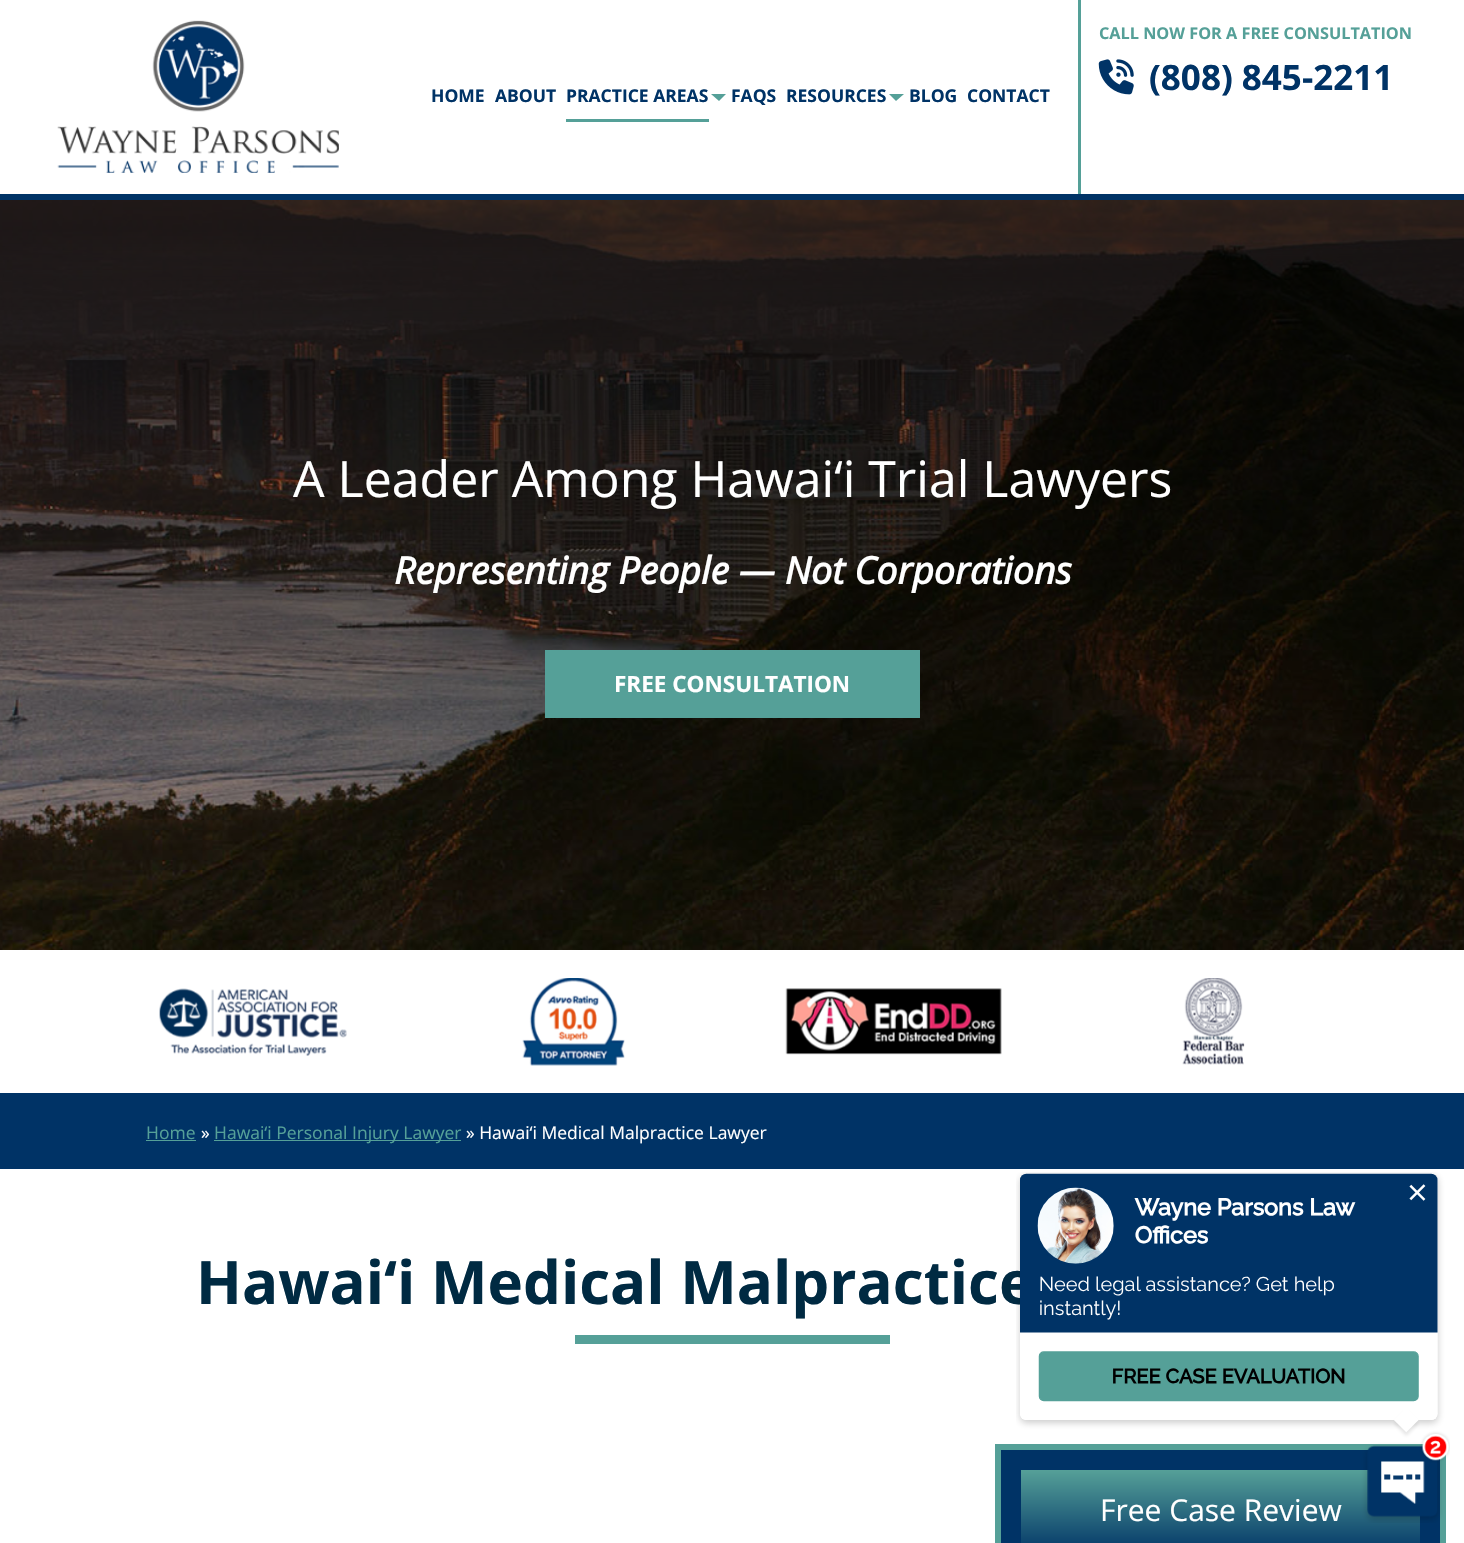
static SkFont makeFont(const char* family, int weight, float size, bool italic = false) {
  SkFontStyle style(weight, SkFontStyle::kNormal_Width,
    italic ? SkFontStyle::kItalic_Slant : SkFontStyle::kUpright_Slant);
  SkFont result(fontMgr->matchFamilyStyle(family, style), size);
  result.setSubpixel(true);
  return result;
}

static void text(SkCanvas* c, const char* s, float x, float y, const SkFont& font, SkColor color) {
  SkPaint ink(SkColor4f::FromColor(color));
  ink.setAntiAlias(true);
  c->drawString(s, x, y, font, ink);
}

static void box(SkCanvas* c, float l, float t, float r, float b, SkColor color) {
  SkPaint ink(SkColor4f::FromColor(color));
  ink.setAntiAlias(true);
  c->drawRect(SkRect::MakeLTRB(l, t, r, b), ink);
}

static void picture(SkCanvas* c, const char* path, float l, float t, float r, float b) {
  auto image = SkImages::DeferredFromEncodedData(SkData::MakeFromFileName(path));
  c->drawImageRect(image, SkRect::MakeLTRB(l, t, r, b), SkSamplingOptions());
}

void draw(SkCanvas* c) {
  SkPaint paint;
  paint.setAntiAlias(true);
  c->clear(0xffffffff);
  box(c, 0, 194, 1464, 200, 0xff003366);
  picture(c, "img_01.png", 57, 20, 339, 173);
  box(c, 1078, 0, 1081, 194, 0xff55a098);
  SkFont face1 = makeFont("Open Sans", 700, 17.5f);
  text(c, "HOME", 431, 102, face1, 0xff003366);
  text(c, "ABOUT", 495, 102, face1, 0xff003366);
  box(c, 566, 119, 709, 122, 0xff55a098);
  text(c, "PRACTICE AREAS", 566, 102, face1, 0xff003366);
  paint.setColor(0xff55a098);
  c->drawPath(SkPathBuilder().moveTo(711, 94).lineTo(726, 94).lineTo(719, 101).close().detach(), paint);
  text(c, "FAQS", 731, 102, face1, 0xff003366);
  text(c, "RESOURCES", 786, 102, face1, 0xff003366);
  c->drawPath(SkPathBuilder().moveTo(889, 94).lineTo(904, 94).lineTo(896, 101).close().detach(), paint);
  text(c, "BLOG", 909, 102, face1, 0xff003366);
  text(c, "CONTACT", 967, 102, face1, 0xff003366);
  SkFont face2 = makeFont("Open Sans", 700, 16.25f);
  text(c, "CALL NOW FOR A FREE CONSULTATION", 1099, 39, face2, 0xff55a098);
  picture(c, "img_02.png", 1098, 59, 1134, 95);
  SkFont face3 = makeFont("Open Sans", 700, 35);
  text(c, "(808) 845-2211", 1149, 90, face3, 0xff003366);
  picture(c, "img_03.png", 0, 200, 1464, 950);
  SkFont face4 = makeFont("Open Sans", 400, 50);
  text(c, "A Leader Among Hawai‘i Trial Lawyers", 293, 497, face4, 0xffffffff);
  SkFont face5 = makeFont("Open Sans", 700, 37.5f, true);
  text(c, "Representing People — Not Corporations", 394, 584, face5, 0xffffffff);
  box(c, 545, 650, 920, 718, 0xff55a098);
  SkFont face6 = makeFont("Open Sans", 700, 22.5f);
  text(c, "FREE CONSULTATION", 614, 692, face6, 0xffffffff);
  picture(c, "img_04.png", 159, 988, 347, 1056);
  picture(c, "img_05.png", 522, 978, 625, 1066);
  picture(c, "img_06.png", 785, 988, 1002, 1055);
  picture(c, "img_07.png", 1182, 978, 1245, 1065);
  box(c, 0, 1093, 1464, 1169, 0xff003366);
  SkFont face7 = makeFont("Open Sans", 400, 17.5f);
  text(c, "Home", 146, 1139, face7, 0xff55a098);
  box(c, 146, 1140, 196, 1141, 0xff55a098);
  text(c, "»", 201, 1139, face7, 0xffffffff);
  box(c, 214, 1140, 461, 1141, 0xff55a098);
  text(c, "Hawai‘i Personal Injury Lawyer", 214, 1139, face7, 0xff55a098);
  text(c, "» Hawai‘i Medical Malpractice Lawyer", 466, 1139, face7, 0xffffffff);
  SkFont face8 = makeFont("Open Sans", 700, 60);
  text(c, "Hawai‘i Medical Malpractice", 196, 1304, face8, 0xff002a42);
  box(c, 575, 1335, 890, 1344, 0xff55a098);
  paint.setColor(0xff003366);
  c->drawRect(SkRect::MakeLTRB(998, 1447, 1443, 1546), paint);
  paint.setStyle(SkPaint::kStroke_Style);
  paint.setStrokeWidth(6);
  paint.setColor(0xff55a098);
  c->drawRect(SkRect::MakeLTRB(998, 1447, 1443, 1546), paint);
  paint.setStyle(SkPaint::kFill_Style);
  {
    const SkColor colors[] = {0xff003366, 0xff55a098};
    const float stops[] = {0, 1};
    const SkPoint ends[] = {{1221, 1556}, {1221, 1470}};
    paint.setShader(SkGradientShader::MakeLinear(ends, colors, stops, 2, SkTileMode::kClamp));
    paint.setAlpha(255);
  }
  c->drawRect(SkRect::MakeLTRB(1021, 1470, 1420, 1543), paint);
  SkFont face9 = makeFont("Open Sans", 400, 30);
  text(c, "Free Case Review", 1100, 1521, face9, 0xffffffff);
  picture(c, "img_08.png", 1016, 1172, 1450, 1523);
}
